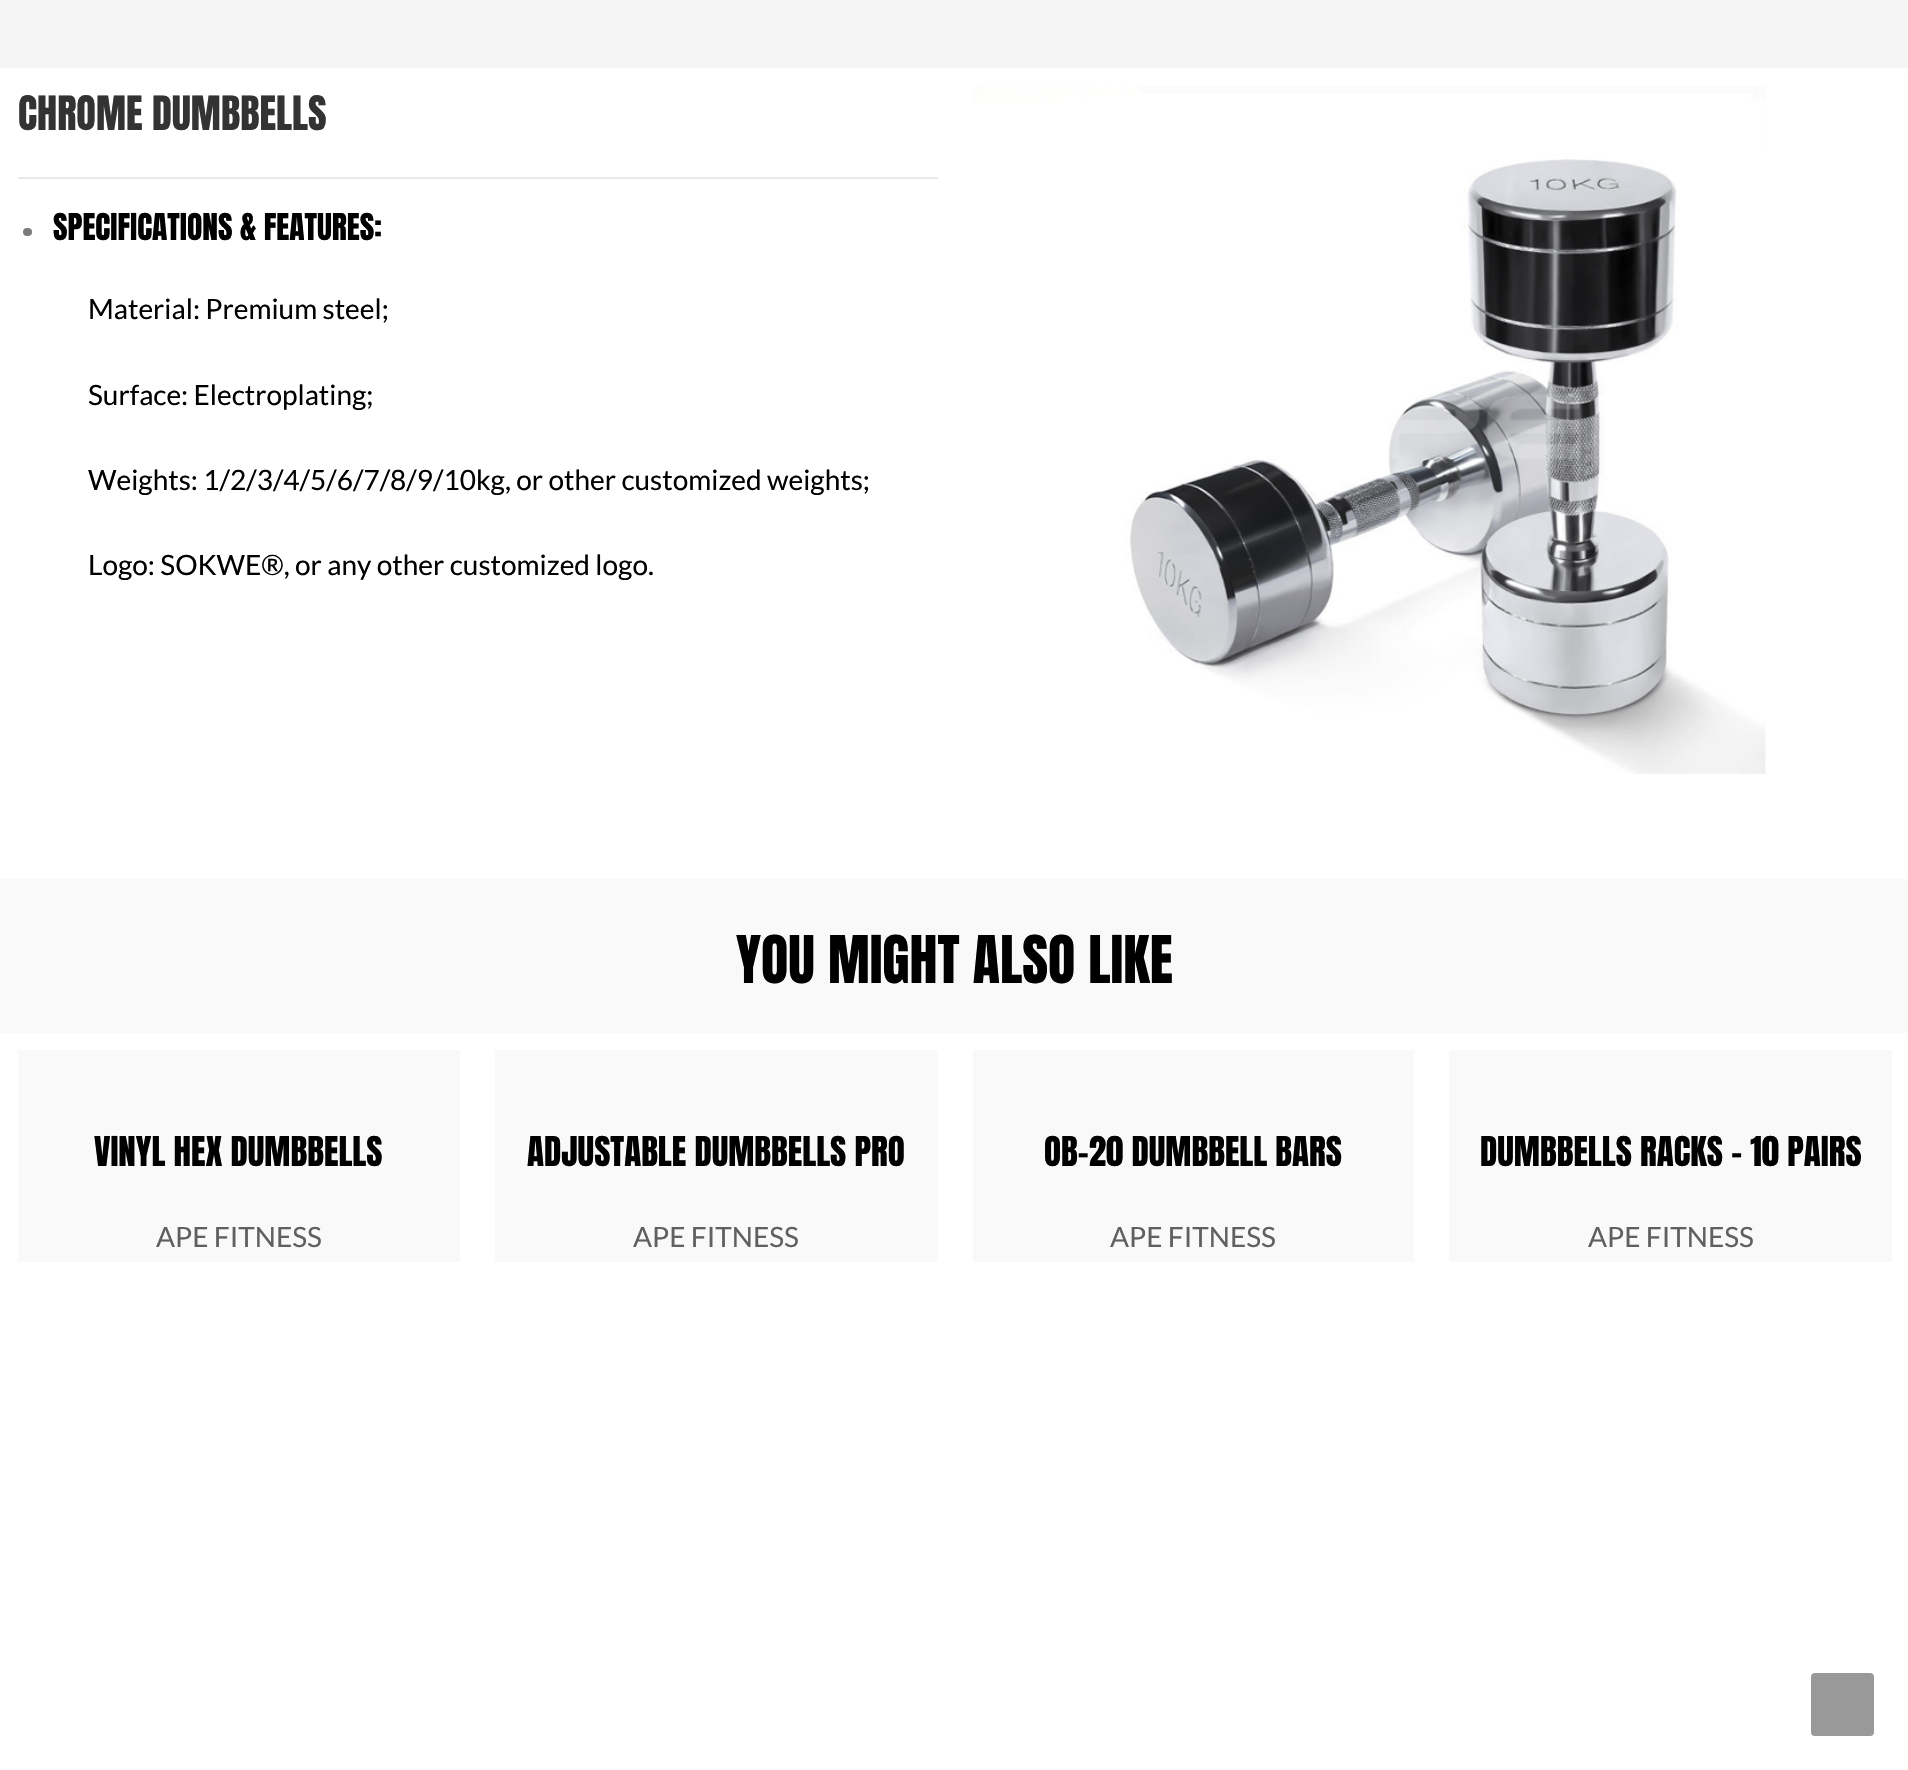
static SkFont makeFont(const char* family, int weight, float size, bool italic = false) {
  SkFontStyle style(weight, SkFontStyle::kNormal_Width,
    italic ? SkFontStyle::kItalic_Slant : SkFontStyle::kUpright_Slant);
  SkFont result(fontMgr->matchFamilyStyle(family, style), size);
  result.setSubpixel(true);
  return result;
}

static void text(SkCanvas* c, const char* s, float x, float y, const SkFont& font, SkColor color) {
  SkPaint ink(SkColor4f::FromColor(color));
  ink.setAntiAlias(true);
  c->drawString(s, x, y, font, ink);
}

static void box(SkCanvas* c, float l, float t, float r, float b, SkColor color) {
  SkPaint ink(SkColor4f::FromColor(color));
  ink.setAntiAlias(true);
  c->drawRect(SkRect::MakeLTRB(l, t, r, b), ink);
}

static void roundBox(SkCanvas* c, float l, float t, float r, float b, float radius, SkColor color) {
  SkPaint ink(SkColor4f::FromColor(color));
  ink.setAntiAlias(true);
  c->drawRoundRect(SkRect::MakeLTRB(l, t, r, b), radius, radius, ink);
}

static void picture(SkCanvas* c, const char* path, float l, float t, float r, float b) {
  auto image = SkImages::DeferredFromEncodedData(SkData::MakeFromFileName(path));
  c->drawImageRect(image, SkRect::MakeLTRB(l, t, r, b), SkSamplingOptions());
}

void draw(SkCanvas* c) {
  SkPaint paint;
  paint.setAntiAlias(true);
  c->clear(0xffffffff);
  box(c, 0, 0, 1908, 68, 0xfff5f5f5);
  SkFont face1 = makeFont("Anton", 400, 40.25f);
  text(c, "CHROME DUMBBELLS", 18, 130, face1, 0xff333333);
  box(c, 18, 177, 938, 179, 0xffe9e9e9);
  roundBox(c, 23, 228, 32, 236, 4, 0xff7a7a7a);
  SkFont face2 = makeFont("Anton", 400, 31.5f);
  text(c, "SPECIFICATIONS & FEATURES:", 53, 240, face2, 0xff000000);
  SkFont face3 = makeFont("Lato", 400, 28);
  text(c, "Material: Premium steel;", 88, 319, face3, 0xff000000);
  text(c, "Surface: Electroplating;", 88, 405, face3, 0xff000000);
  text(c, "Weights: 1/2/3/4/5/6/7/8/9/10kg, or other customized weights;", 88, 490, face3, 0xff000000);
  text(c, "Logo: SOKWE®, or any other customized logo.", 88, 575, face3, 0xff000000);
  picture(c, "img_01.png", 973, 86, 1766, 774);
  box(c, 0, 879, 1908, 1033, 0xfff9f9f9);
  SkFont face4 = makeFont("Anton", 400, 56);
  text(c, "YOU MIGHT ALSO LIKE", 736, 983, face4, 0xff000000);
  box(c, 18, 1050, 460, 1262, 0xfff9f9f9);
  SkFont face5 = makeFont("Anton", 400, 35);
  text(c, "VINYL HEX DUMBBELLS", 94, 1166, face5, 0xff000000);
  text(c, "APE FITNESS", 156, 1247, face3, 0xff606060);
  box(c, 495, 1050, 938, 1262, 0xfff9f9f9);
  text(c, "ADJUSTABLE DUMBBELLS PRO", 527, 1166, face5, 0xff000000);
  text(c, "APE FITNESS", 633, 1247, face3, 0xff606060);
  box(c, 973, 1050, 1414, 1262, 0xfff9f9f9);
  text(c, "OB-20 DUMBBELL BARS", 1044, 1166, face5, 0xff000000);
  text(c, "APE FITNESS", 1110, 1247, face3, 0xff606060);
  box(c, 1449, 1050, 1892, 1262, 0xfff9f9f9);
  text(c, "DUMBBELLS RACKS - 10 PAIRS", 1480, 1166, face5, 0xff000000);
  text(c, "APE FITNESS", 1588, 1247, face3, 0xff606060);
  roundBox(c, 1811, 1673, 1874, 1736, 4, 0xff999999);
}
